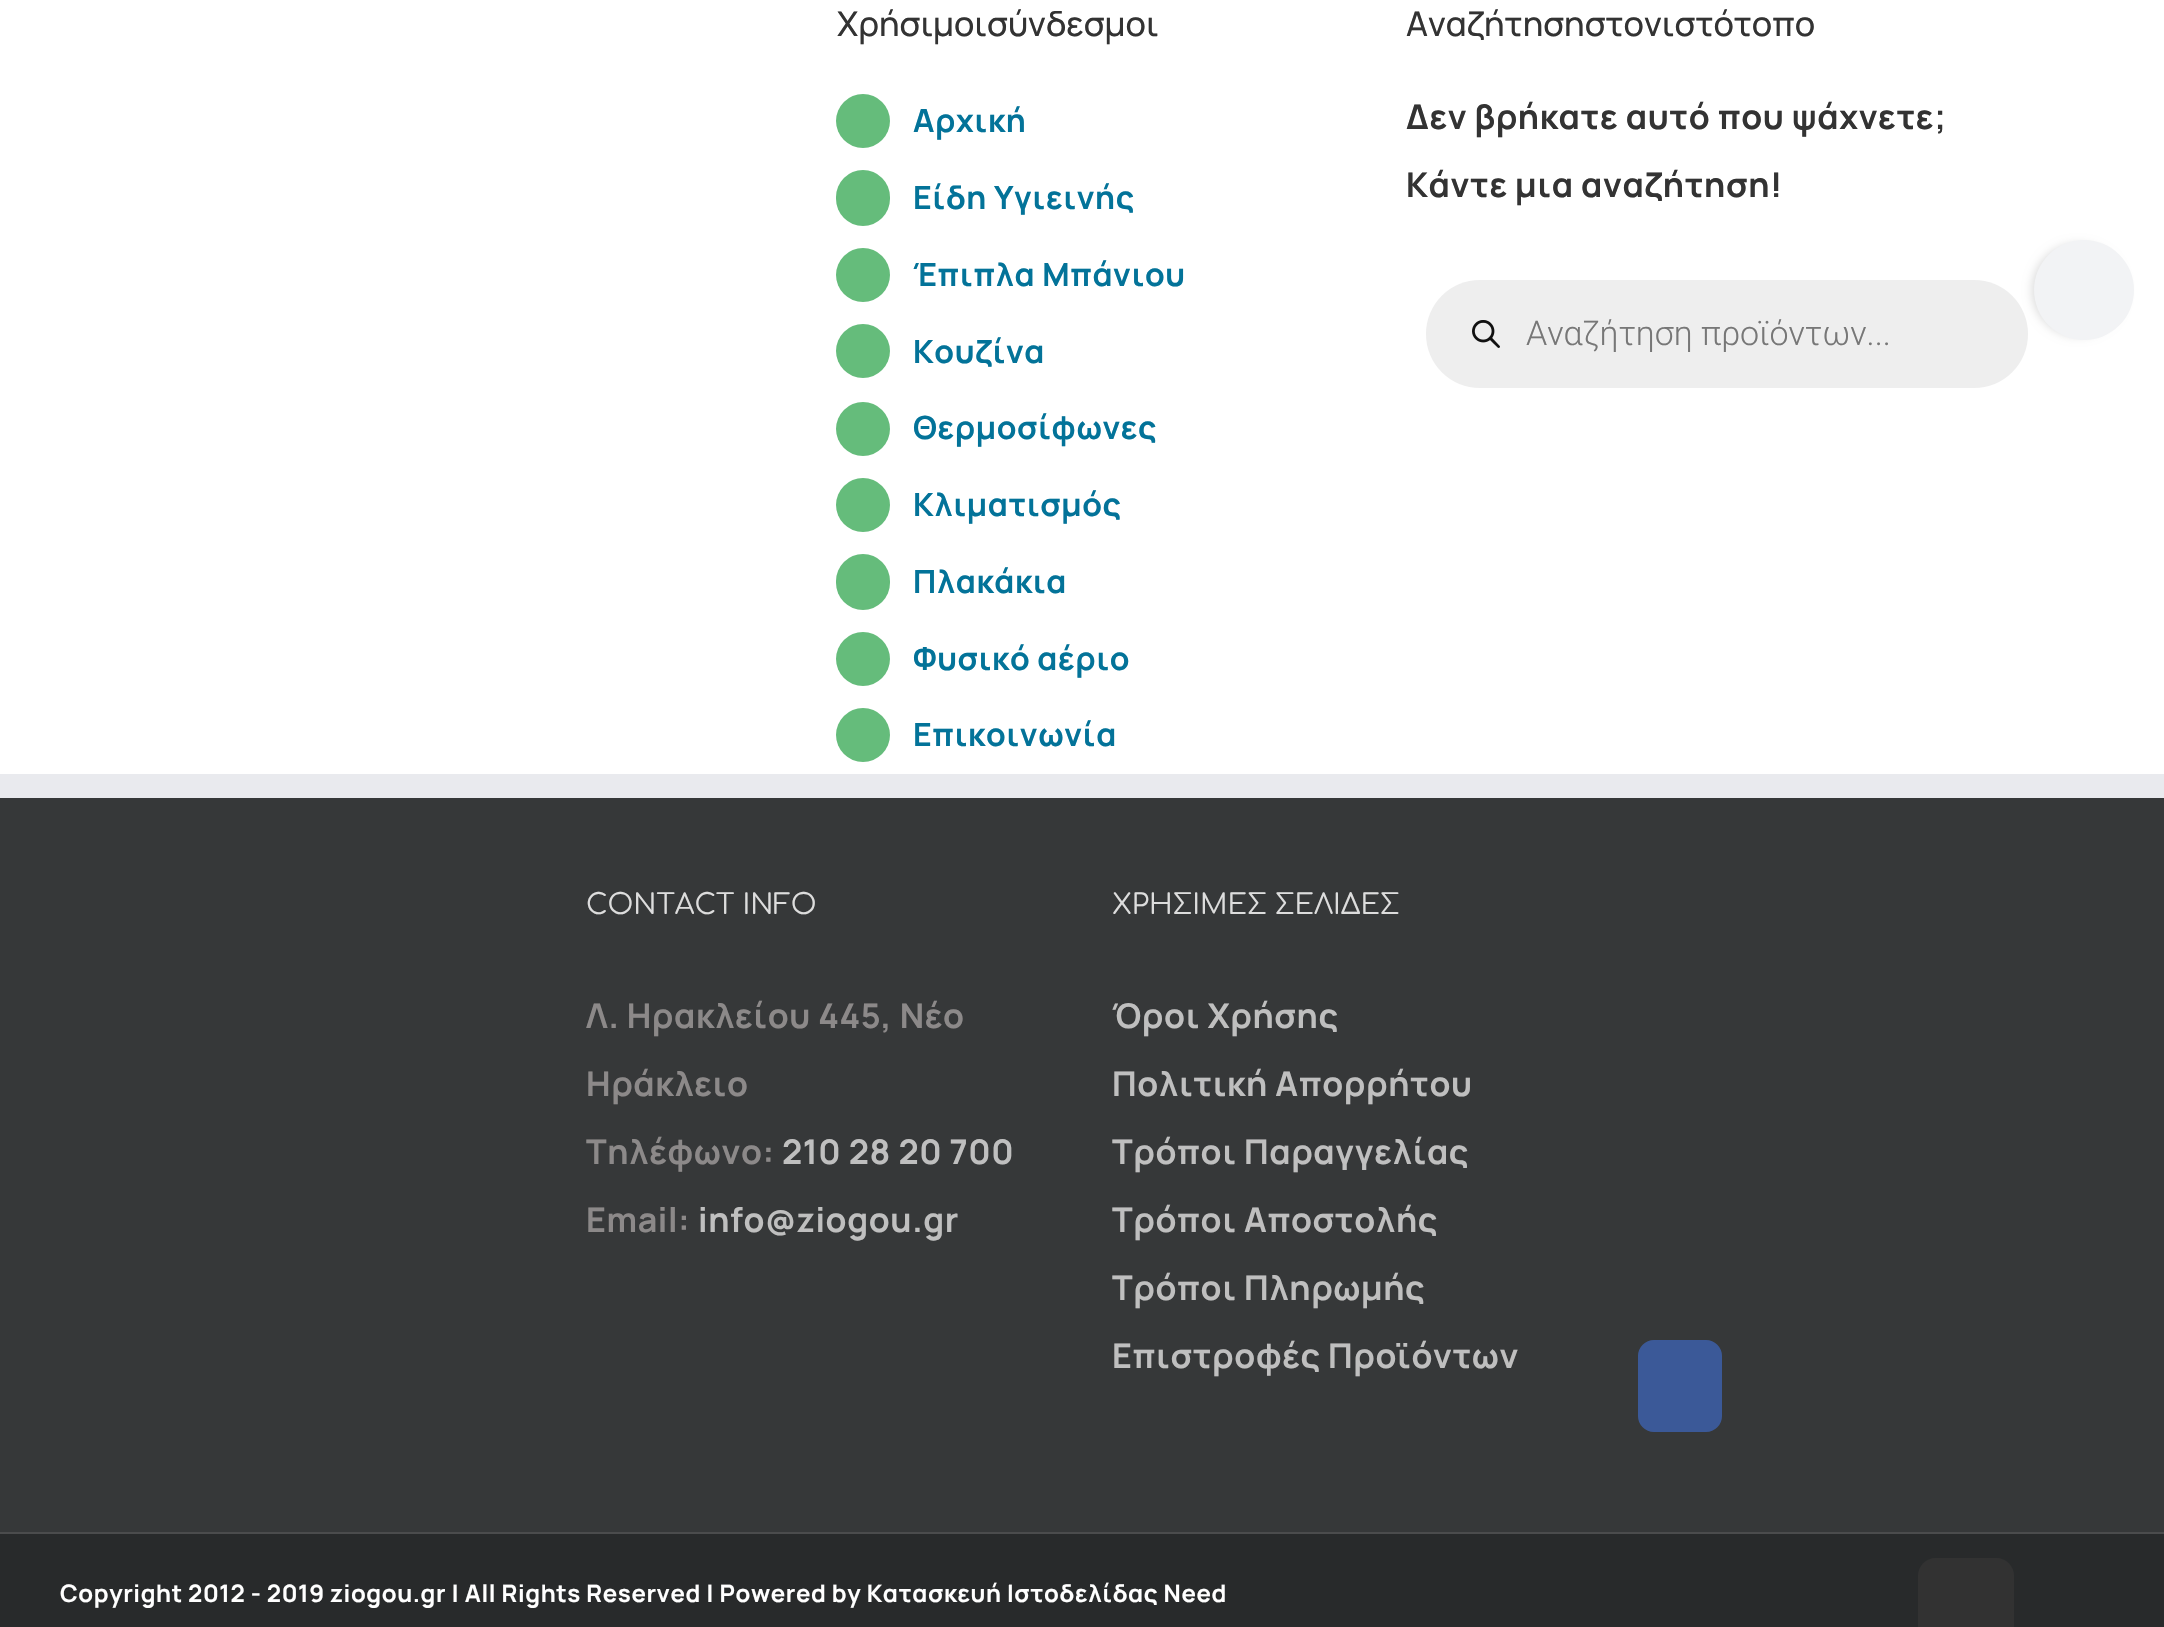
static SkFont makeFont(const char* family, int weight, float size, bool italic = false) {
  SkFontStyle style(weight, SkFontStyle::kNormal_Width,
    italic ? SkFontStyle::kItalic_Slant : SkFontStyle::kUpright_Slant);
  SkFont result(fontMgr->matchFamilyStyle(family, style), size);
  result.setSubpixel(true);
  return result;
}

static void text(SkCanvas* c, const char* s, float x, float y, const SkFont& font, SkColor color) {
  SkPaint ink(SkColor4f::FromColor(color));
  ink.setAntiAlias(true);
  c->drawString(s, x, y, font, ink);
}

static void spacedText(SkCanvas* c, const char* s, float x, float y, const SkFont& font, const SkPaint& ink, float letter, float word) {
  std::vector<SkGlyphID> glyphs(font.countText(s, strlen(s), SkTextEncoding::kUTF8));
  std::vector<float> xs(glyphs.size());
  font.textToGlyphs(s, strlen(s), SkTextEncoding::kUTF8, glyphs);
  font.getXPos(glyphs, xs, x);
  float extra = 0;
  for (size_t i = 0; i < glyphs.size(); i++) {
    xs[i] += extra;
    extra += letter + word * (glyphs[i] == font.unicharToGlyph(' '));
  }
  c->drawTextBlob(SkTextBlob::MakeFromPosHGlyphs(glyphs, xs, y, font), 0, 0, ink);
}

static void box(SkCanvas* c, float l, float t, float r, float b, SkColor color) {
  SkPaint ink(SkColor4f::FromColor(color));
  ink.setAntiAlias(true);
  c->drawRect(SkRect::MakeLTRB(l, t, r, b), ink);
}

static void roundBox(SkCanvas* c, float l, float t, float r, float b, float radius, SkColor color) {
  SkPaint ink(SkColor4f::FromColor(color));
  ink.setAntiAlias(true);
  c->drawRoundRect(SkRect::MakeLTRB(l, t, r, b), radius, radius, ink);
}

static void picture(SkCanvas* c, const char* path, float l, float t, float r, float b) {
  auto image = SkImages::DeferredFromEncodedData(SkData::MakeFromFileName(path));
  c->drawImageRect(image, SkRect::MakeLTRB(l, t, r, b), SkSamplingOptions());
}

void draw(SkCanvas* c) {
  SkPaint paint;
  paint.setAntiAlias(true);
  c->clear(0xffffffff);
  SkFont face1 = makeFont("Manrope", 500, 34);
  text(c, "Χρήσιμοι σύνδεσμοι", 837, 36, face1, 0xff333333);
  paint.setColor(0xff65bc7b);
  c->drawCircle(863, 121, 27, paint);
  SkFont face2 = makeFont("Manrope", 700, 32);
  paint.setColor(0xff037399);
  spacedText(c, "Αρχική", 913, 132, face2, paint, 0.6f, 0);
  roundBox(c, 836, 170, 890, 226, 27, 0xff65bc7b);
  spacedText(c, "Είδη Υγιεινής", 913, 209, face2, paint, 0.6f, 0);
  paint.setColor(0xff65bc7b);
  c->drawCircle(863, 275, 27, paint);
  paint.setColor(0xff037399);
  spacedText(c, "Έπιπλα Μπάνιου", 913, 286, face2, paint, 0.6f, 0);
  paint.setColor(0xff65bc7b);
  c->drawCircle(863, 351, 27, paint);
  paint.setColor(0xff037399);
  spacedText(c, "Κουζίνα", 913, 363, face2, paint, 0.6f, 0);
  paint.setColor(0xff65bc7b);
  c->drawCircle(863, 429, 27, paint);
  paint.setColor(0xff037399);
  spacedText(c, "Θερμοσίφωνες", 913, 439, face2, paint, 0.6f, 0);
  paint.setColor(0xff65bc7b);
  c->drawCircle(863, 505, 27, paint);
  paint.setColor(0xff037399);
  spacedText(c, "Κλιματισμός", 913, 516, face2, paint, 0.6f, 0);
  roundBox(c, 836, 554, 890, 610, 27, 0xff65bc7b);
  spacedText(c, "Πλακάκια", 913, 593, face2, paint, 0.6f, 0);
  paint.setColor(0xff65bc7b);
  c->drawCircle(863, 659, 27, paint);
  paint.setColor(0xff037399);
  spacedText(c, "Φυσικό αέριο", 913, 670, face2, paint, 0.6f, 0);
  paint.setColor(0xff65bc7b);
  c->drawCircle(863, 735, 27, paint);
  paint.setColor(0xff037399);
  spacedText(c, "Επικοινωνία", 913, 746, face2, paint, 0.6f, 0);
  text(c, "Αναζήτηση στον ιστότοπο", 1406, 36, face1, 0xff333333);
  SkFont face3 = makeFont("Manrope", 700, 34);
  paint.setColor(0xff333333);
  spacedText(c, "Δεν βρήκατε αυτό που ψάχνετε;", 1406, 129, face3, paint, 0.6f, 0);
  spacedText(c, "Κάντε μια αναζήτηση!", 1406, 197, face3, paint, 0.6f, 0);
  roundBox(c, 1426, 280, 2028, 388, 54, 0xffeeeeee);
  picture(c, "img_01.png", 1472, 320, 1500, 348);
  SkFont face4 = makeFont("Roboto", 300, 34);
  text(c, "Αναζήτηση προϊόντων...", 1526, 345, face4, 0xff777777);
  paint.setColor(0x24000000);
  paint.setMaskFilter(SkMaskFilter::MakeBlur(kNormal_SkBlurStyle, 5));
  c->drawRoundRect(SkRect::MakeLTRB(2032, 244, 2124, 336), 46, 46, paint);
  paint.setMaskFilter(nullptr);
  paint.setColor(0xfff2f3f5);
  c->drawCircle(2084, 290, 50, paint);
  box(c, 0, 798, 2164, 1532, 0xff363839);
  box(c, 0, 774, 2164, 798, 0xffe9eaee);
  SkFont face5 = makeFont("Comfortaa", 400, 28);
  text(c, "CONTACT INFO", 586, 914, face5, 0xffdddddd);
  paint.setColor(0xff8c8989);
  spacedText(c, "Λ. Ηρακλείου 445, Νέο", 586, 1028, face3, paint, 0.6f, 0);
  spacedText(c, "Ηράκλειο", 586, 1096, face3, paint, 0.6f, 0);
  spacedText(c, "Τηλέφωνο:", 586, 1164, face3, paint, 0.6f, 0);
  paint.setColor(0xffbfbfbf);
  spacedText(c, "210 28 20 700", 782, 1164, face3, paint, 0.6f, 0);
  paint.setColor(0xff8c8989);
  spacedText(c, "Email:", 586, 1232, face3, paint, 0.6f, 0);
  paint.setColor(0xffbfbfbf);
  spacedText(c, "info@ziogou.gr", 698, 1232, face3, paint, 0.6f, 0);
  text(c, "ΧΡΗΣΙΜΕΣ ΣΕΛΙΔΕΣ", 1112, 914, face5, 0xffdddddd);
  spacedText(c, "Όροι Χρήσης", 1112, 1028, face3, paint, 0.6f, 0);
  spacedText(c, "Πολιτική Απορρήτου", 1112, 1096, face3, paint, 0.6f, 0);
  spacedText(c, "Τρόποι Παραγγελίας", 1112, 1164, face3, paint, 0.6f, 0);
  spacedText(c, "Τρόποι Αποστολής", 1112, 1232, face3, paint, 0.6f, 0);
  spacedText(c, "Τρόποι Πληρωμής", 1112, 1300, face3, paint, 0.6f, 0);
  spacedText(c, "Επιστροφές Προϊόντων", 1112, 1368, face3, paint, 0.6f, 0);
  paint.setColor(0xff3b5998);
  c->drawRoundRect(SkRect::MakeLTRB(1639, 1341, 1721, 1431), 15, 15, paint);
  paint.setStyle(SkPaint::kStroke_Style);
  paint.setStrokeWidth(2);
  c->drawRoundRect(SkRect::MakeLTRB(1639, 1341, 1721, 1431), 15, 15, paint);
  box(c, 0, 1534, 2164, 1627, 0xff282a2b);
  box(c, 0, 1532, 2164, 1534, 0xff4b4c4d);
  SkFont face6 = makeFont("Manrope", 700, 24);
  paint.setStyle(SkPaint::kFill_Style);
  paint.setColor(0xffffffff);
  spacedText(c, "Copyright 2012 - 2019 ziogou.gr | All Rights Reserved | Powered by Κατασκευή Ιστοδελίδας Need", 60, 1602, face6, paint, 0.6f, 0);
  paint.setColor(0xff323232);
  c->drawPath(SkPathBuilder().moveTo(1936, 1558).lineTo(1996, 1558).cubicTo(2006, 1558, 2014, 1566, 2014, 1576).lineTo(2014, 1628).lineTo(1918, 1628).lineTo(1918, 1576).cubicTo(1918, 1566, 1926, 1558, 1936, 1558).close().detach(), paint);
}
